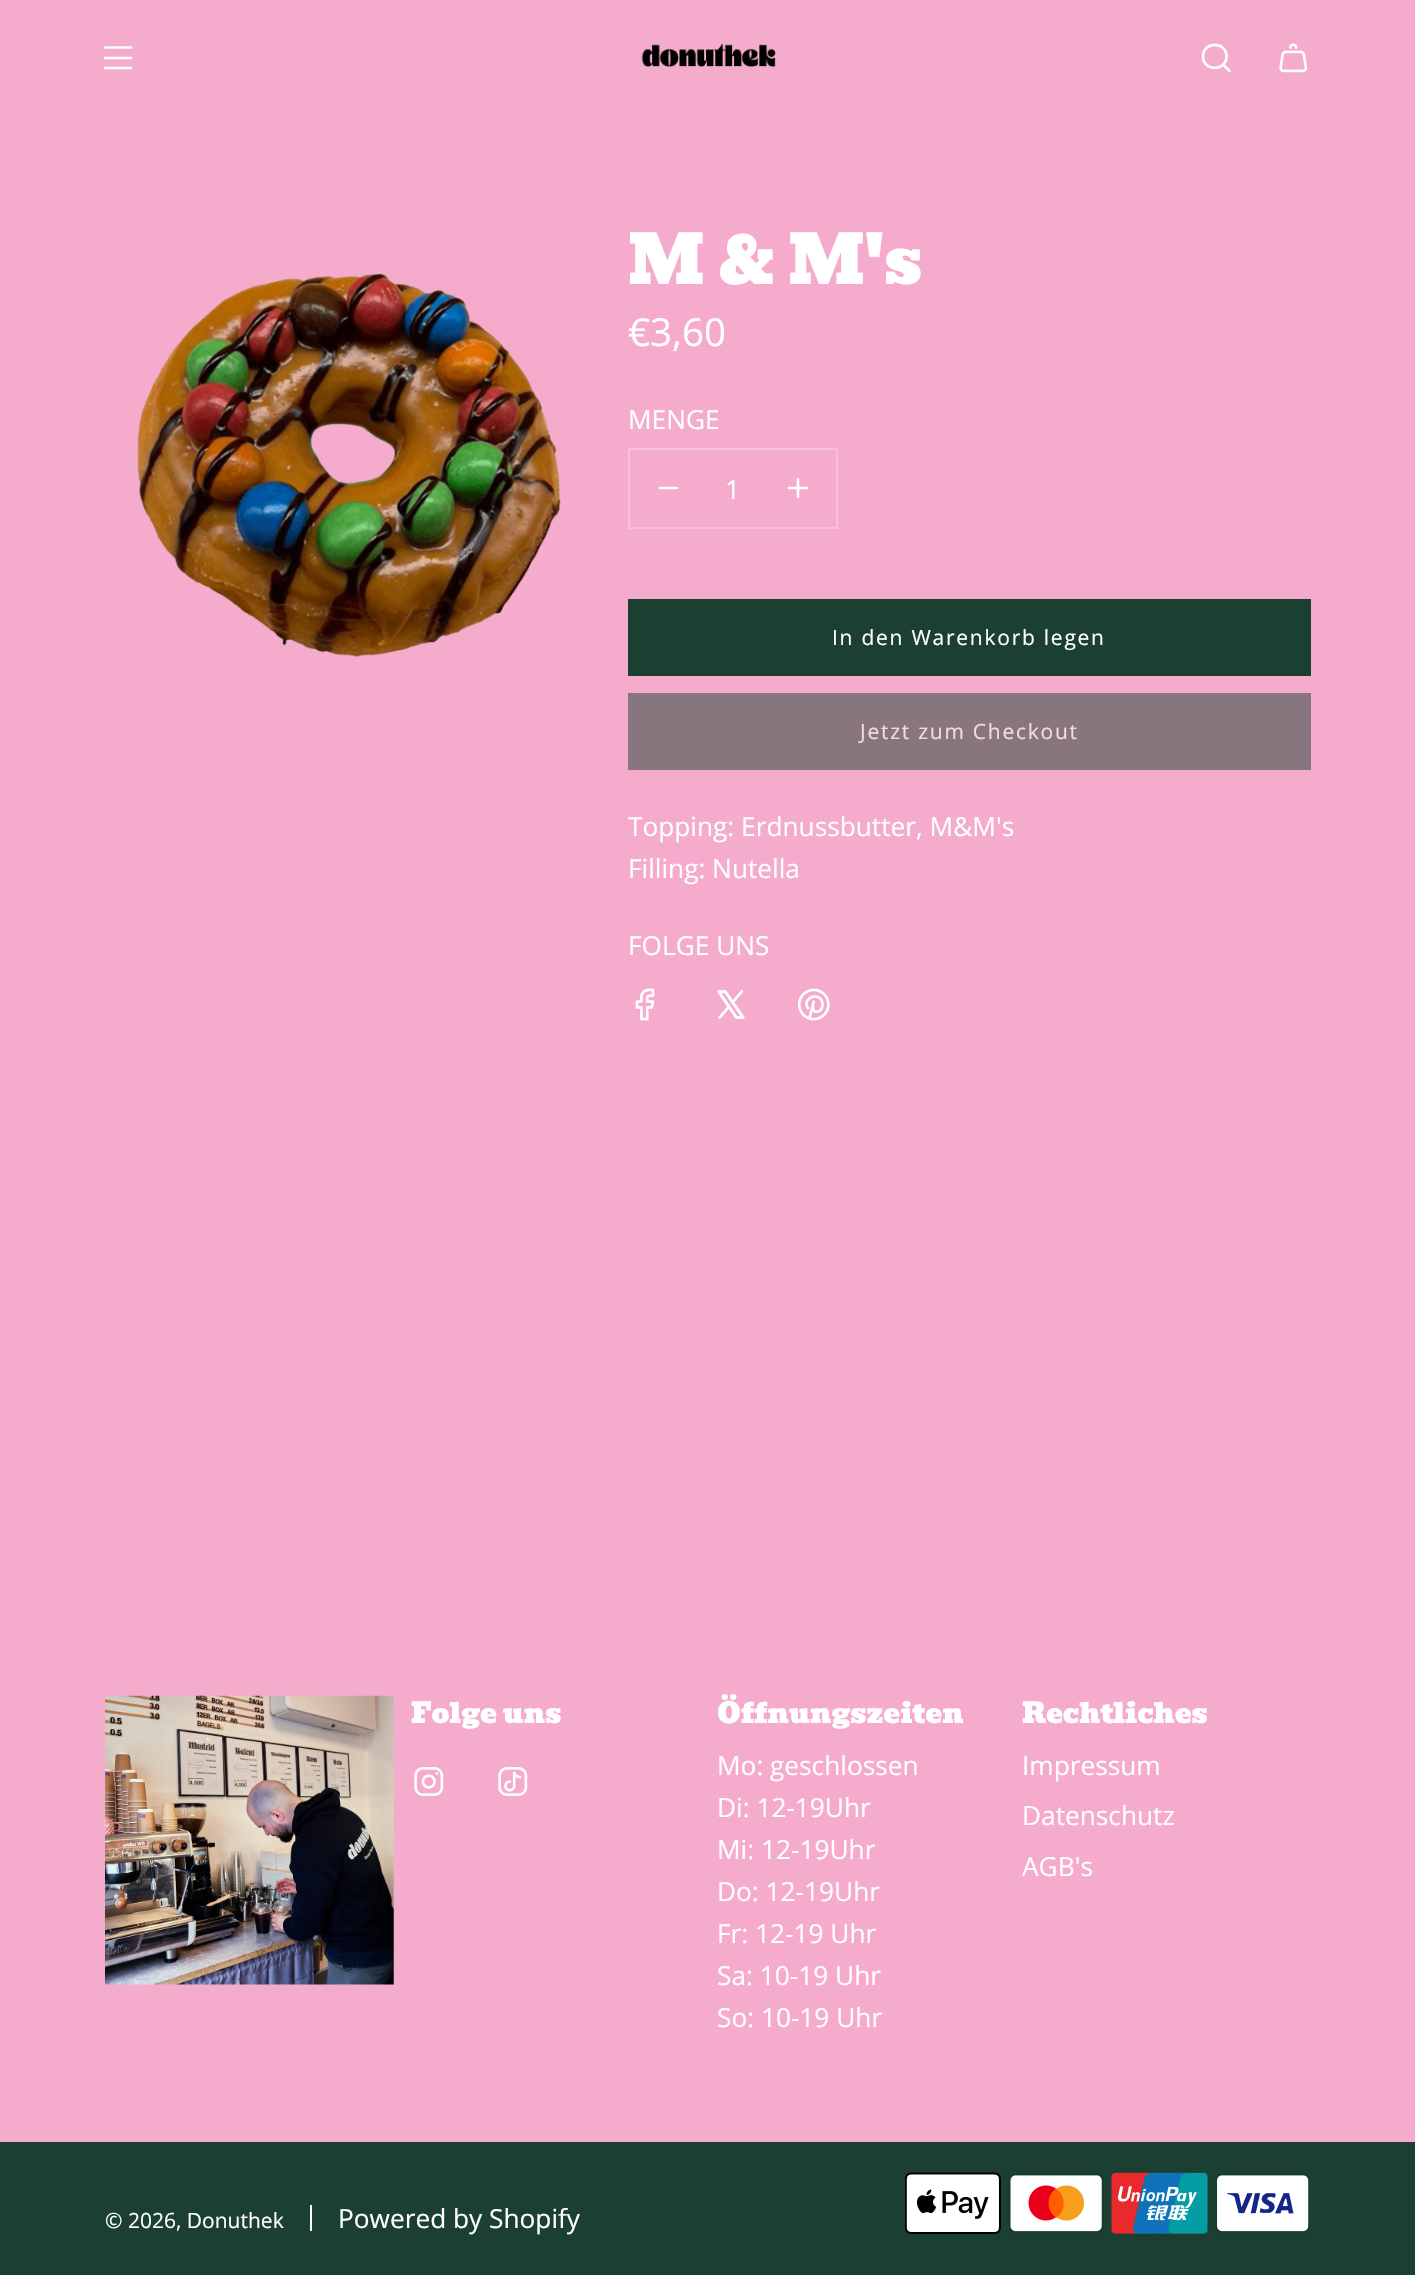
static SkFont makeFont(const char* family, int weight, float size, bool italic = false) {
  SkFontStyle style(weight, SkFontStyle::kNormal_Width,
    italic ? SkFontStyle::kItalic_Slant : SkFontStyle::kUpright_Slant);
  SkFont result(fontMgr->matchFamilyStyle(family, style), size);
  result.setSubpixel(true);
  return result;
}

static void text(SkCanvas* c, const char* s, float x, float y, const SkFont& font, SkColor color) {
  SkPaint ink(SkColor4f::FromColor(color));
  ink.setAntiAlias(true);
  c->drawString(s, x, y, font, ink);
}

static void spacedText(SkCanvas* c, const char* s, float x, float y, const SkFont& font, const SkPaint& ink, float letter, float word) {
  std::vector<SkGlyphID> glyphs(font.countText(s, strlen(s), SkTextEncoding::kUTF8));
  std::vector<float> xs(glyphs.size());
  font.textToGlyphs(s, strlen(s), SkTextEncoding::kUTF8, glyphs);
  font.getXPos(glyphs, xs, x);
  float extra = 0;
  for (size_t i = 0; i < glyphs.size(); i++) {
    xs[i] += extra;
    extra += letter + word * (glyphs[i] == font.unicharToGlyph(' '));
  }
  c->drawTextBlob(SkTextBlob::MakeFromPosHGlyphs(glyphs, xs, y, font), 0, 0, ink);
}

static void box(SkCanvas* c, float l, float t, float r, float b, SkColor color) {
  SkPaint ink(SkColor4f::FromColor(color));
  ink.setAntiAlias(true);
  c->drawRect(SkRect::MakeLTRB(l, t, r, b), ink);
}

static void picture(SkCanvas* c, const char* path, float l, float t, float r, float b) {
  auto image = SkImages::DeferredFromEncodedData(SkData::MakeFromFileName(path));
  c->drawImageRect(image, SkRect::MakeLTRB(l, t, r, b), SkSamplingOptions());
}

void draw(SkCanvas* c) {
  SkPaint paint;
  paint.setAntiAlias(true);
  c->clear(0xfff5accc);
  paint.setStyle(SkPaint::kStroke_Style);
  paint.setStrokeWidth(2.6f);
  paint.setStrokeCap(SkPaint::kRound_Cap);
  paint.setStrokeJoin(SkPaint::kRound_Join);
  paint.setColor(0xffffffff);
  c->drawPath(SkPathBuilder().moveTo(105, 47.5f).lineTo(131, 47.5f).moveTo(105, 58).lineTo(131, 58).moveTo(105, 68).lineTo(131, 68).detach(), paint);
  picture(c, "img_01.png", 641, 43, 776, 67);
  c->drawPath(SkPathBuilder().moveTo(1223.5f, 65).lineTo(1229.5f, 71).moveTo(1203, 56.5f).cubicTo(1203, 71.5f, 1226.5f, 71.5f, 1226.5f, 56.5f).cubicTo(1226.5f, 41, 1203, 41, 1203, 56.5f).close().detach(), paint);
  picture(c, "img_02.png", 1279, 43, 1308, 73);
  picture(c, "img_03.png", 137, 273, 561, 657);
  SkFont face1 = makeFont("Bevan", 400, 66.5f);
  text(c, "M & M's", 628, 284, face1, 0xffffffff);
  SkFont face2 = makeFont("Open Sans", 400, 38.5f);
  text(c, "€3,60", 628, 346, face2, 0xffffffff);
  SkFont face3 = makeFont("Open Sans", 400, 26.25f);
  text(c, "MENGE", 628, 429, face3, 0xffffffff);
  paint.setStrokeWidth(2);
  paint.setStrokeCap(SkPaint::kButt_Cap);
  paint.setStrokeJoin(SkPaint::kMiter_Join);
  paint.setColor(0xfff8c1d9);
  c->drawRect(SkRect::MakeLTRB(629, 449, 837, 528), paint);
  paint.setStrokeWidth(2.6f);
  paint.setStrokeCap(SkPaint::kRound_Cap);
  paint.setStrokeJoin(SkPaint::kRound_Join);
  paint.setColor(0xffffffff);
  c->drawPath(SkPathBuilder().moveTo(660, 488).lineTo(677, 488).detach(), paint);
  text(c, "1", 725, 499, face3, 0xffffffff);
  c->drawPath(SkPathBuilder().moveTo(789, 488).lineTo(798, 488).moveTo(798, 488).lineTo(807, 488).moveTo(798, 488).lineTo(798, 479.5f).moveTo(798, 488).lineTo(798, 497).detach(), paint);
  box(c, 628, 599, 1311, 676, 0xff1b3f30);
  SkFont face4 = makeFont("Open Sans", 400, 21);
  paint.setStyle(SkPaint::kFill_Style);
  spacedText(c, "In den Warenkorb legen", 832, 645, face4, paint, 1.75f, 0);
  box(c, 628, 693, 1311, 770, 0xff88767e);
  paint.setColor(0xfffad6e6);
  spacedText(c, "Jetzt zum Checkout", 860, 739, face4, paint, 1.75f, 0);
  text(c, "Topping: Erdnussbutter, M&M's", 628, 836, face3, 0xffffffff);
  text(c, "Filling: Nutella", 628, 878, face3, 0xffffffff);
  text(c, "FOLGE UNS", 628, 955, face3, 0xffffffff);
  picture(c, "img_04.png", 635, 988, 655, 1021);
  picture(c, "img_05.png", 717, 990, 745, 1019);
  picture(c, "img_06.png", 797, 988, 830, 1021);
  picture(c, "img_07.png", 105, 1695, 394, 1985);
  SkFont face5 = makeFont("Bevan", 400, 28);
  text(c, "Folge uns", 411, 1723, face5, 0xffffffff);
  picture(c, "img_08.png", 414, 1767, 444, 1796);
  picture(c, "img_09.png", 498, 1767, 528, 1796);
  text(c, "Öffnungszeiten", 717, 1723, face5, 0xffffffff);
  text(c, "Mo: geschlossen", 717, 1775, face3, 0xffffffff);
  text(c, "Di: 12-19Uhr", 717, 1817, face3, 0xffffffff);
  text(c, "Mi: 12-19Uhr", 717, 1859, face3, 0xffffffff);
  text(c, "Do: 12-19Uhr", 717, 1901, face3, 0xffffffff);
  text(c, "Fr: 12-19 Uhr", 717, 1943, face3, 0xffffffff);
  text(c, "Sa: 10-19 Uhr", 717, 1985, face3, 0xffffffff);
  text(c, "So: 10-19 Uhr", 717, 2027, face3, 0xffffffff);
  text(c, "Rechtliches", 1022, 1723, face5, 0xffffffff);
  text(c, "Impressum", 1022, 1775, face3, 0xffffffff);
  text(c, "Datenschutz", 1022, 1825, face3, 0xffffffff);
  text(c, "AGB's", 1022, 1876, face3, 0xffffffff);
  box(c, 0, 2142, 1415, 2275, 0xff1b3f30);
  text(c, "© 2026, Donuthek", 105, 2228, face4, 0xffffffff);
  box(c, 310, 2205, 312, 2231, 0xffffffff);
  text(c, "Powered by Shopify", 338, 2228, face3, 0xffffffff);
  picture(c, "img_10.png", 905, 2172, 1001, 2235);
  picture(c, "img_11.png", 1008, 2173, 1104, 2233);
  picture(c, "img_12.png", 1111, 2172, 1208, 2234);
  picture(c, "img_13.png", 1215, 2173, 1310, 2233);
}
